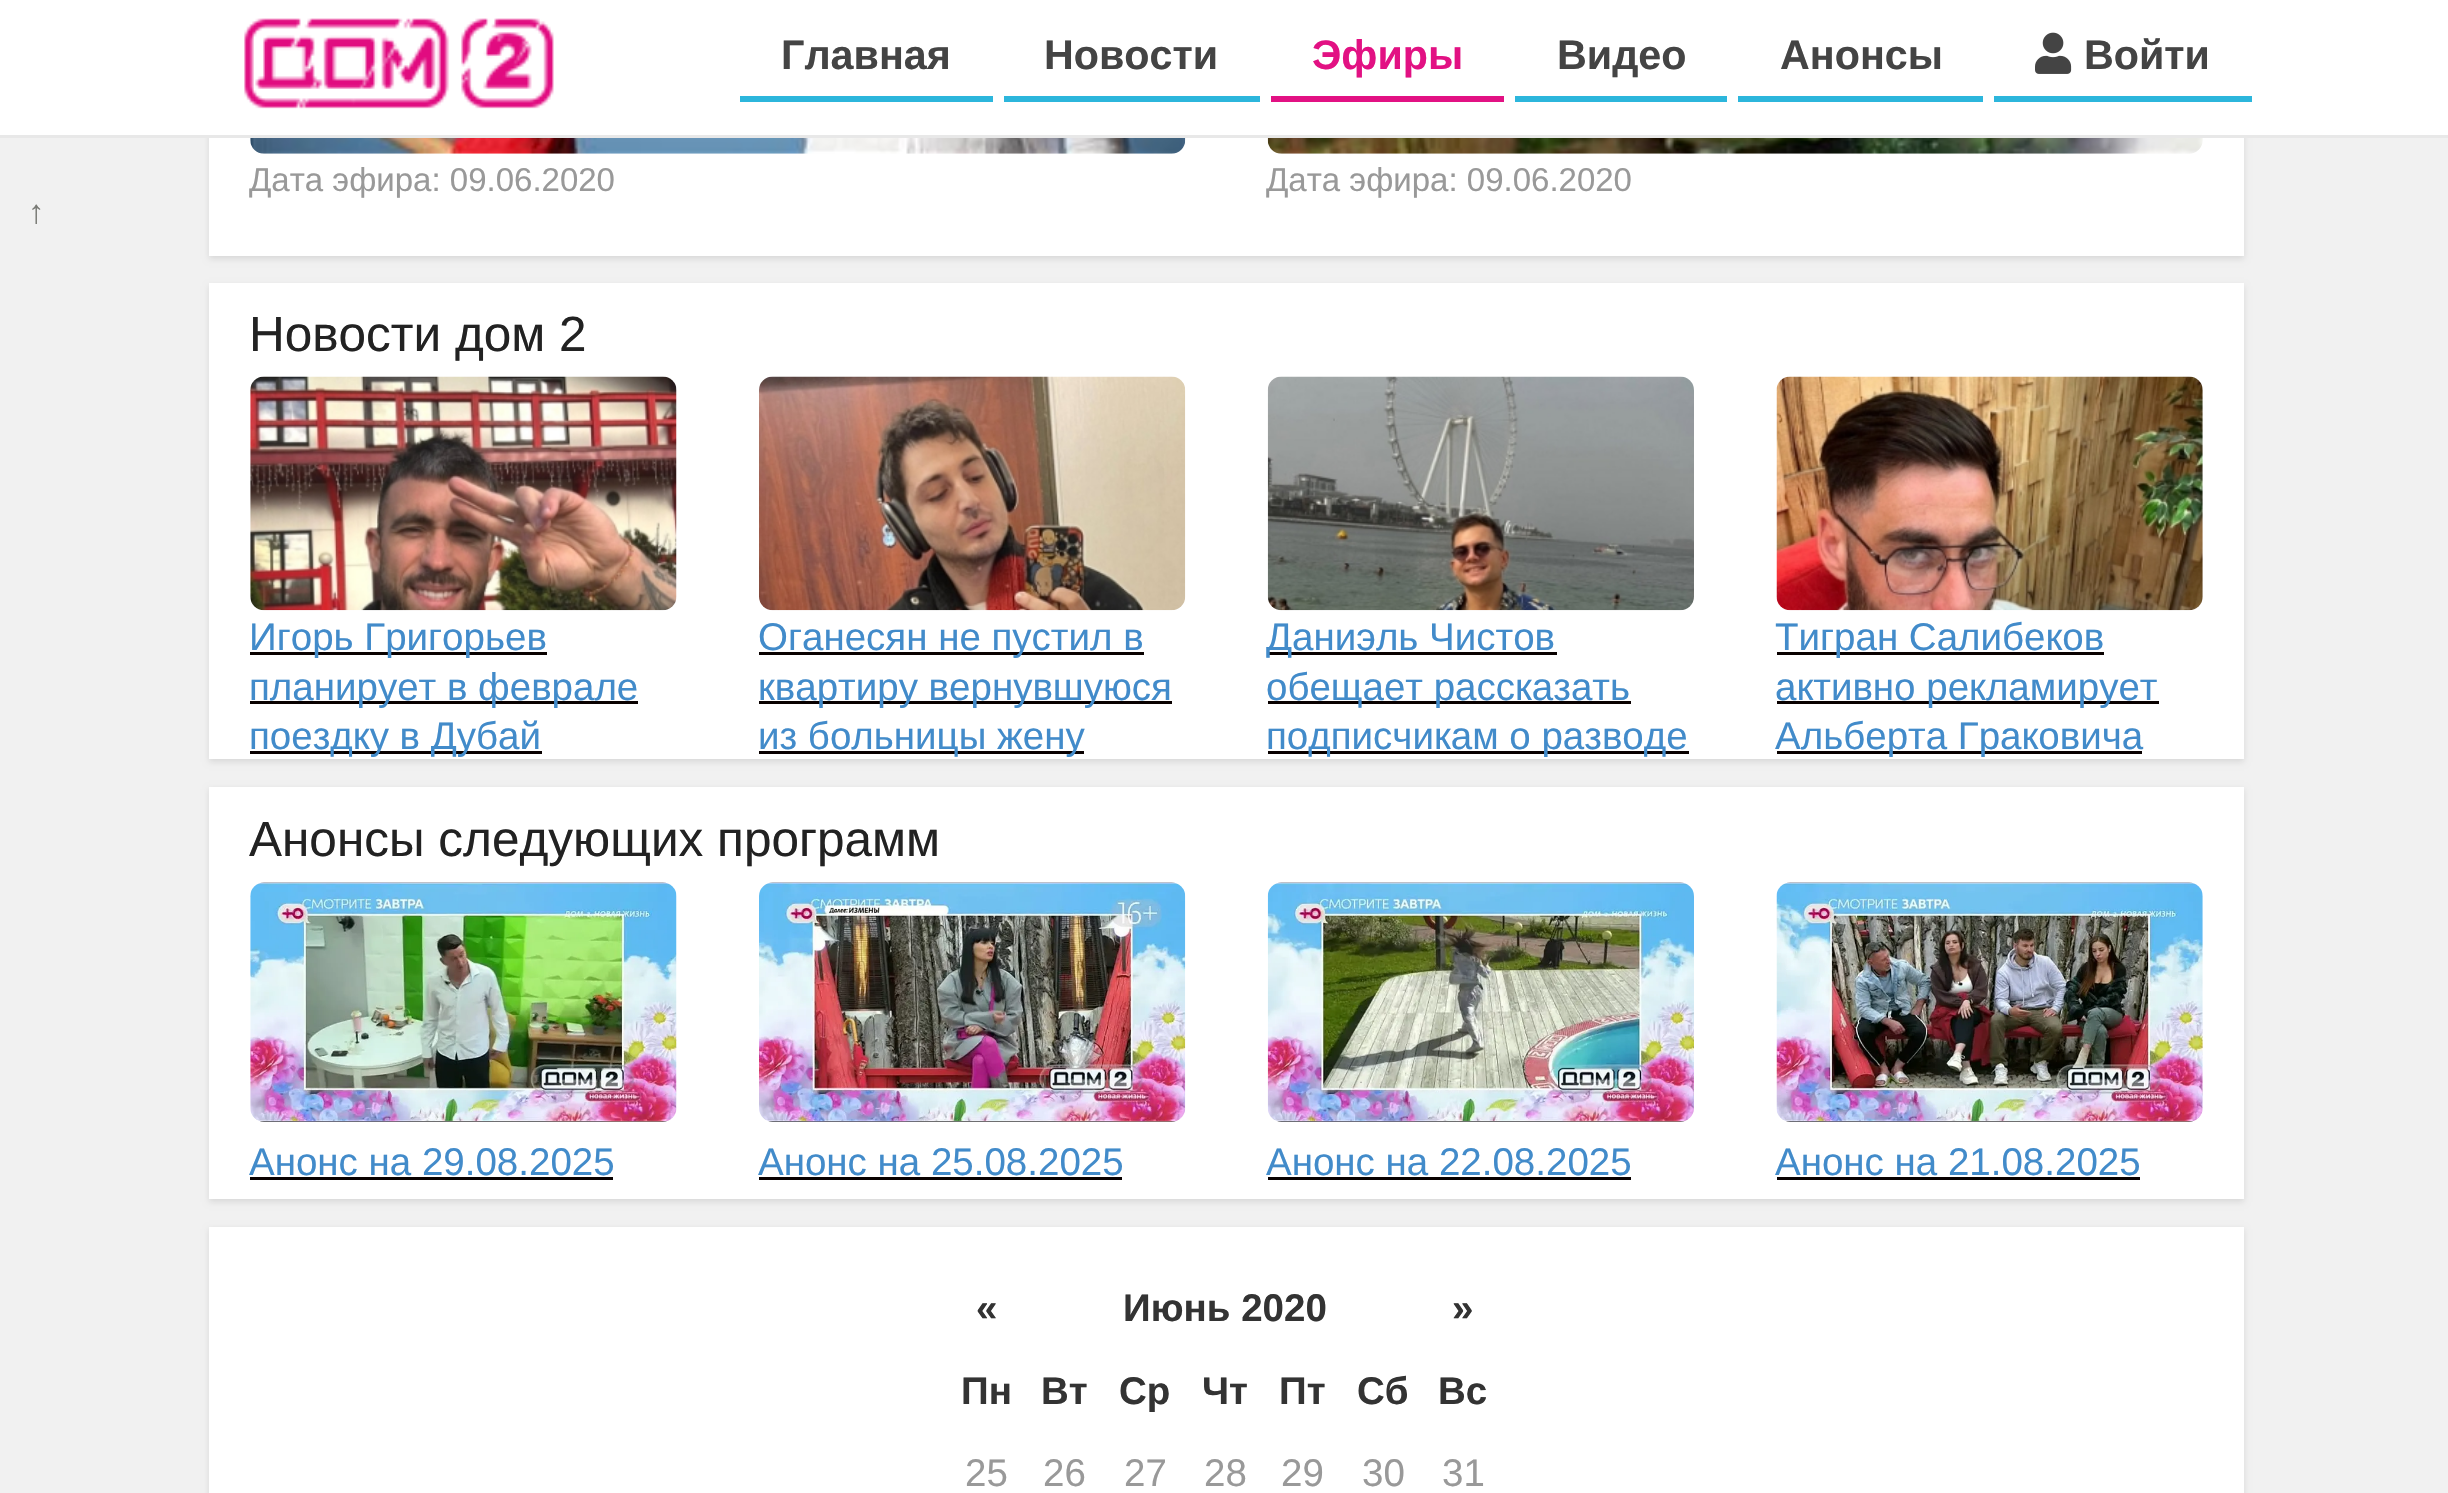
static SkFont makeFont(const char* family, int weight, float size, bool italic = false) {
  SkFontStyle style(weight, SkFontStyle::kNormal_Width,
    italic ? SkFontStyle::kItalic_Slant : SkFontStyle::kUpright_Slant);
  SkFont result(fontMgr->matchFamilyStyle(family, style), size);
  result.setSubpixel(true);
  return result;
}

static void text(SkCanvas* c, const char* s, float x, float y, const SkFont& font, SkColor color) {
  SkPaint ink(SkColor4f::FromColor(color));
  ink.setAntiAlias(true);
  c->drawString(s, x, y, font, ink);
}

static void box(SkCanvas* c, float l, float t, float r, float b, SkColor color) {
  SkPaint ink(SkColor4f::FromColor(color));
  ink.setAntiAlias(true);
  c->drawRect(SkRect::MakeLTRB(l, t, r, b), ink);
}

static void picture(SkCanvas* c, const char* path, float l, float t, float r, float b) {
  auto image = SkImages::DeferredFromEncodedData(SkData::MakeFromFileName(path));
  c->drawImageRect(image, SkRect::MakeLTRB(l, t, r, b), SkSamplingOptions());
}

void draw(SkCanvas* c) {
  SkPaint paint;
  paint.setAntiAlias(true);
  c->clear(0xfff1f1f1);
  paint.setColor(0x1a000000);
  paint.setMaskFilter(SkMaskFilter::MakeBlur(kNormal_SkBlurStyle, 3));
  c->drawRect(SkRect::MakeLTRB(209, -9, 2244, 259), paint);
  paint.setMaskFilter(nullptr);
  box(c, 0, 0, 2448, 135, 0xffffffff);
  box(c, 0, 135, 2448, 138, 0xffe8e8e8);
  picture(c, "img_01.png", 244, 18, 554, 109);
  box(c, 740, 96, 993, 102, 0xff2cb6dc);
  SkFont face1 = makeFont("Liberation Sans", 700, 41.25f);
  text(c, "Главная", 781, 69, face1, 0xff444444);
  box(c, 1004, 96, 1260, 102, 0xff2cb6dc);
  text(c, "Новости", 1044, 69, face1, 0xff444444);
  box(c, 1271, 96, 1504, 102, 0xffe21183);
  text(c, "Эфиры", 1312, 69, face1, 0xffe21183);
  box(c, 1515, 96, 1727, 102, 0xff2cb6dc);
  text(c, "Видео", 1557, 69, face1, 0xff444444);
  box(c, 1738, 96, 1983, 102, 0xff2cb6dc);
  text(c, "Анонсы", 1780, 69, face1, 0xff444444);
  box(c, 1994, 96, 2252, 102, 0xff2cb6dc);
  picture(c, "img_02.png", 2035, 32, 2072, 74);
  text(c, "Войти", 2084, 69, face1, 0xff444444);
  SkFont face2 = makeFont("Liberation Sans", 700, 33);
  text(c, "↑", 28, 223, face2, 0xff7a7b76);
  box(c, 209, 138, 2244, 256, 0xffffffff);
  picture(c, "img_03.png", 250, 138, 1186, 154);
  SkFont face3 = makeFont("Liberation Sans", 400, 33);
  text(c, "Дата эфира: 09.06.2020", 249, 191, face3, 0xff999999);
  picture(c, "img_04.png", 1267, 138, 2203, 154);
  text(c, "Дата эфира: 09.06.2020", 1266, 191, face3, 0xff999999);
  paint.setMaskFilter(SkMaskFilter::MakeBlur(kNormal_SkBlurStyle, 3));
  c->drawRect(SkRect::MakeLTRB(209, 286, 2244, 762), paint);
  paint.setMaskFilter(nullptr);
  box(c, 209, 283, 2244, 759, 0xffffffff);
  SkFont face4 = makeFont("Liberation Sans", 400, 49.5f);
  text(c, "Новости дом 2", 249, 351, face4, 0xff222222);
  picture(c, "img_05.png", 250, 376, 677, 611);
  box(c, 250, 652, 547, 655, 0xff090100);
  SkFont face5 = makeFont("Liberation Sans", 400, 38.5f);
  text(c, "Игорь Григорьев", 249, 650, face5, 0xff428bca);
  box(c, 250, 701, 638, 704, 0xff090100);
  text(c, "планирует в феврале", 249, 700, face5, 0xff428bca);
  box(c, 250, 751, 542, 754, 0xff090100);
  text(c, "поездку в Дубай", 249, 749, face5, 0xff428bca);
  picture(c, "img_06.png", 759, 376, 1186, 611);
  box(c, 759, 652, 1144, 655, 0xff090100);
  text(c, "Оганесян не пустил в", 758, 650, face5, 0xff428bca);
  box(c, 759, 701, 1172, 704, 0xff090100);
  text(c, "квартиру вернувшуюся", 758, 700, face5, 0xff428bca);
  box(c, 759, 751, 1084, 754, 0xff090100);
  text(c, "из больницы жену", 758, 749, face5, 0xff428bca);
  picture(c, "img_07.png", 1267, 376, 1694, 611);
  box(c, 1268, 652, 1557, 655, 0xff090100);
  text(c, "Даниэль Чистов", 1266, 650, face5, 0xff428bca);
  box(c, 1268, 701, 1631, 704, 0xff090100);
  text(c, "обещает рассказать", 1266, 700, face5, 0xff428bca);
  box(c, 1268, 751, 1689, 754, 0xff090100);
  text(c, "подписчикам о разводе", 1266, 749, face5, 0xff428bca);
  picture(c, "img_08.png", 1776, 376, 2203, 611);
  box(c, 1777, 652, 2104, 655, 0xff090100);
  text(c, "Тигран Салибеков", 1775, 650, face5, 0xff428bca);
  box(c, 1777, 701, 2159, 704, 0xff090100);
  text(c, "активно рекламирует", 1775, 700, face5, 0xff428bca);
  box(c, 1777, 751, 2142, 754, 0xff090100);
  text(c, "Альберта Граковича", 1775, 749, face5, 0xff428bca);
  paint.setMaskFilter(SkMaskFilter::MakeBlur(kNormal_SkBlurStyle, 3));
  c->drawRect(SkRect::MakeLTRB(209, 789, 2244, 1202), paint);
  paint.setMaskFilter(nullptr);
  box(c, 209, 787, 2244, 1199, 0xffffffff);
  text(c, "Анонсы следующих программ", 249, 856, face4, 0xff222222);
  picture(c, "img_09.png", 250, 882, 677, 1122);
  text(c, "Анонс на 29.08.2025", 249, 1175, face5, 0xff428bca);
  box(c, 250, 1177, 613, 1180, 0xff090100);
  picture(c, "img_10.png", 759, 882, 1186, 1122);
  text(c, "Анонс на 25.08.2025", 758, 1175, face5, 0xff428bca);
  box(c, 759, 1177, 1122, 1180, 0xff090100);
  picture(c, "img_11.png", 1267, 882, 1694, 1122);
  text(c, "Анонс на 22.08.2025", 1266, 1175, face5, 0xff428bca);
  box(c, 1268, 1177, 1631, 1180, 0xff090100);
  picture(c, "img_12.png", 1776, 882, 2203, 1122);
  text(c, "Анонс на 21.08.2025", 1775, 1175, face5, 0xff428bca);
  box(c, 1777, 1177, 2140, 1180, 0xff090100);
  paint.setMaskFilter(SkMaskFilter::MakeBlur(kNormal_SkBlurStyle, 3));
  c->drawRect(SkRect::MakeLTRB(209, 1229, 2244, 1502), paint);
  paint.setMaskFilter(nullptr);
  box(c, 209, 1227, 2244, 1493, 0xffffffff);
  SkFont face6 = makeFont("Liberation Sans", 700, 38.5f);
  text(c, "«", 976, 1321, face6, 0xff333333);
  text(c, "Июнь 2020", 1123, 1321, face6, 0xff333333);
  text(c, "»", 1452, 1321, face6, 0xff333333);
  text(c, "Пн", 961, 1404, face6, 0xff333333);
  text(c, "Вт", 1041, 1404, face6, 0xff333333);
  text(c, "Ср", 1119, 1404, face6, 0xff333333);
  text(c, "Чт", 1202, 1404, face6, 0xff333333);
  text(c, "Пт", 1279, 1404, face6, 0xff333333);
  text(c, "Сб", 1357, 1404, face6, 0xff333333);
  text(c, "Вс", 1438, 1404, face6, 0xff333333);
  text(c, "25", 965, 1486, face5, 0xff999999);
  text(c, "26", 1043, 1486, face5, 0xff999999);
  text(c, "27", 1124, 1486, face5, 0xff999999);
  text(c, "28", 1204, 1486, face5, 0xff999999);
  text(c, "29", 1281, 1486, face5, 0xff999999);
  text(c, "30", 1362, 1486, face5, 0xff999999);
  text(c, "31", 1442, 1486, face5, 0xff999999);
}
